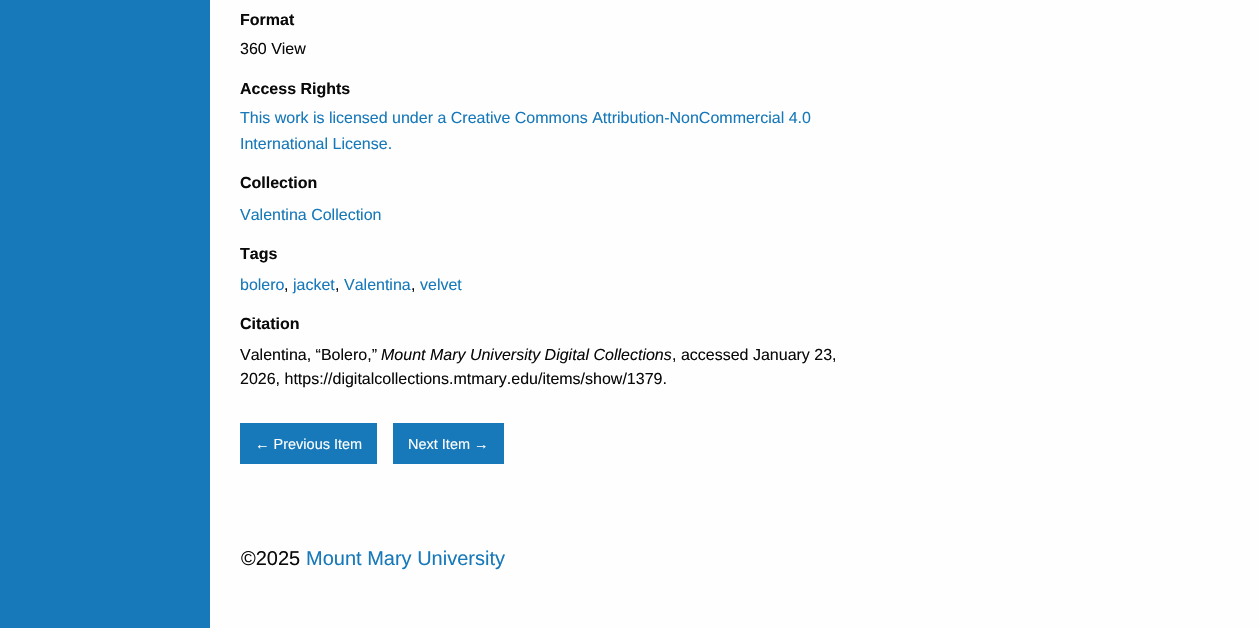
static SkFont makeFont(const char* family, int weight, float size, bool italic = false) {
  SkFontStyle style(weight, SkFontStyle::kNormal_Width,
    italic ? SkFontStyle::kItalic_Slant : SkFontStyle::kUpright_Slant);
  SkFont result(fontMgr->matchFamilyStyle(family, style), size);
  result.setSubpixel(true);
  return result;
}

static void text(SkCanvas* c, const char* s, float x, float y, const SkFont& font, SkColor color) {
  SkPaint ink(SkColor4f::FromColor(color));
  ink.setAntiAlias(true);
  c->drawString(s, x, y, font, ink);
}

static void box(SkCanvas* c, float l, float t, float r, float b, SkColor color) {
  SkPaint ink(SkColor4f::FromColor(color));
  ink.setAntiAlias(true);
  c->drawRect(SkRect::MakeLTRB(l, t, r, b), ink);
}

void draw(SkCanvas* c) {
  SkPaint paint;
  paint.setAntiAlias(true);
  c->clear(0xff1779ba);
  box(c, 210, 0, 1259, 628, 0xfffefefe);
  SkFont face1 = makeFont("Liberation Sans", 700, 16);
  text(c, "Format", 240, 25, face1, 0xff0a0a0a);
  SkFont face2 = makeFont("Liberation Sans", 400, 16);
  text(c, "360 View", 240, 54, face2, 0xff0a0a0a);
  text(c, "Access Rights", 240, 94, face1, 0xff0a0a0a);
  text(c, "This work is licensed under a Creative Commons Attribution-NonCommercial 4.0", 240, 123, face2, 0xff1779ba);
  text(c, "International License.", 240, 149, face2, 0xff1779ba);
  text(c, "Collection", 240, 188, face1, 0xff0a0a0a);
  text(c, "Valentina Collection", 240, 220, face2, 0xff1779ba);
  text(c, "Tags", 240, 259, face1, 0xff0a0a0a);
  text(c, "bolero", 240, 290, face2, 0xff1779ba);
  text(c, ",", 284, 290, face2, 0xff0a0a0a);
  text(c, "jacket", 293, 290, face2, 0xff1779ba);
  text(c, ",", 335, 290, face2, 0xff0a0a0a);
  text(c, "Valentina", 344, 290, face2, 0xff1779ba);
  text(c, ",", 411, 290, face2, 0xff0a0a0a);
  text(c, "velvet", 420, 290, face2, 0xff1779ba);
  text(c, "Citation", 240, 329, face1, 0xff0a0a0a);
  text(c, "Valentina, “Bolero,”", 240, 360, face2, 0xff0a0a0a);
  SkFont face3 = makeFont("Liberation Sans", 400, 16, true);
  text(c, "Mount Mary University Digital Collections", 381, 360, face3, 0xff0a0a0a);
  text(c, ", accessed January 23,", 672, 360, face2, 0xff0a0a0a);
  text(c, "2026, https://digitalcollections.mtmary.edu/items/show/1379.", 240, 384, face2, 0xff0a0a0a);
  box(c, 240, 423, 377, 464, 0xff1779ba);
  SkFont face4 = makeFont("Liberation Sans", 400, 14.5f);
  text(c, "← Previous Item", 255, 449, face4, 0xfffefefe);
  box(c, 393, 423, 504, 464, 0xff1779ba);
  text(c, "Next Item →", 408, 449, face4, 0xfffefefe);
  SkFont face5 = makeFont("Liberation Sans", 400, 20);
  text(c, "©2025", 241, 565, face5, 0xff0a0a0a);
  text(c, "Mount Mary University", 306, 565, face5, 0xff1779ba);
}
